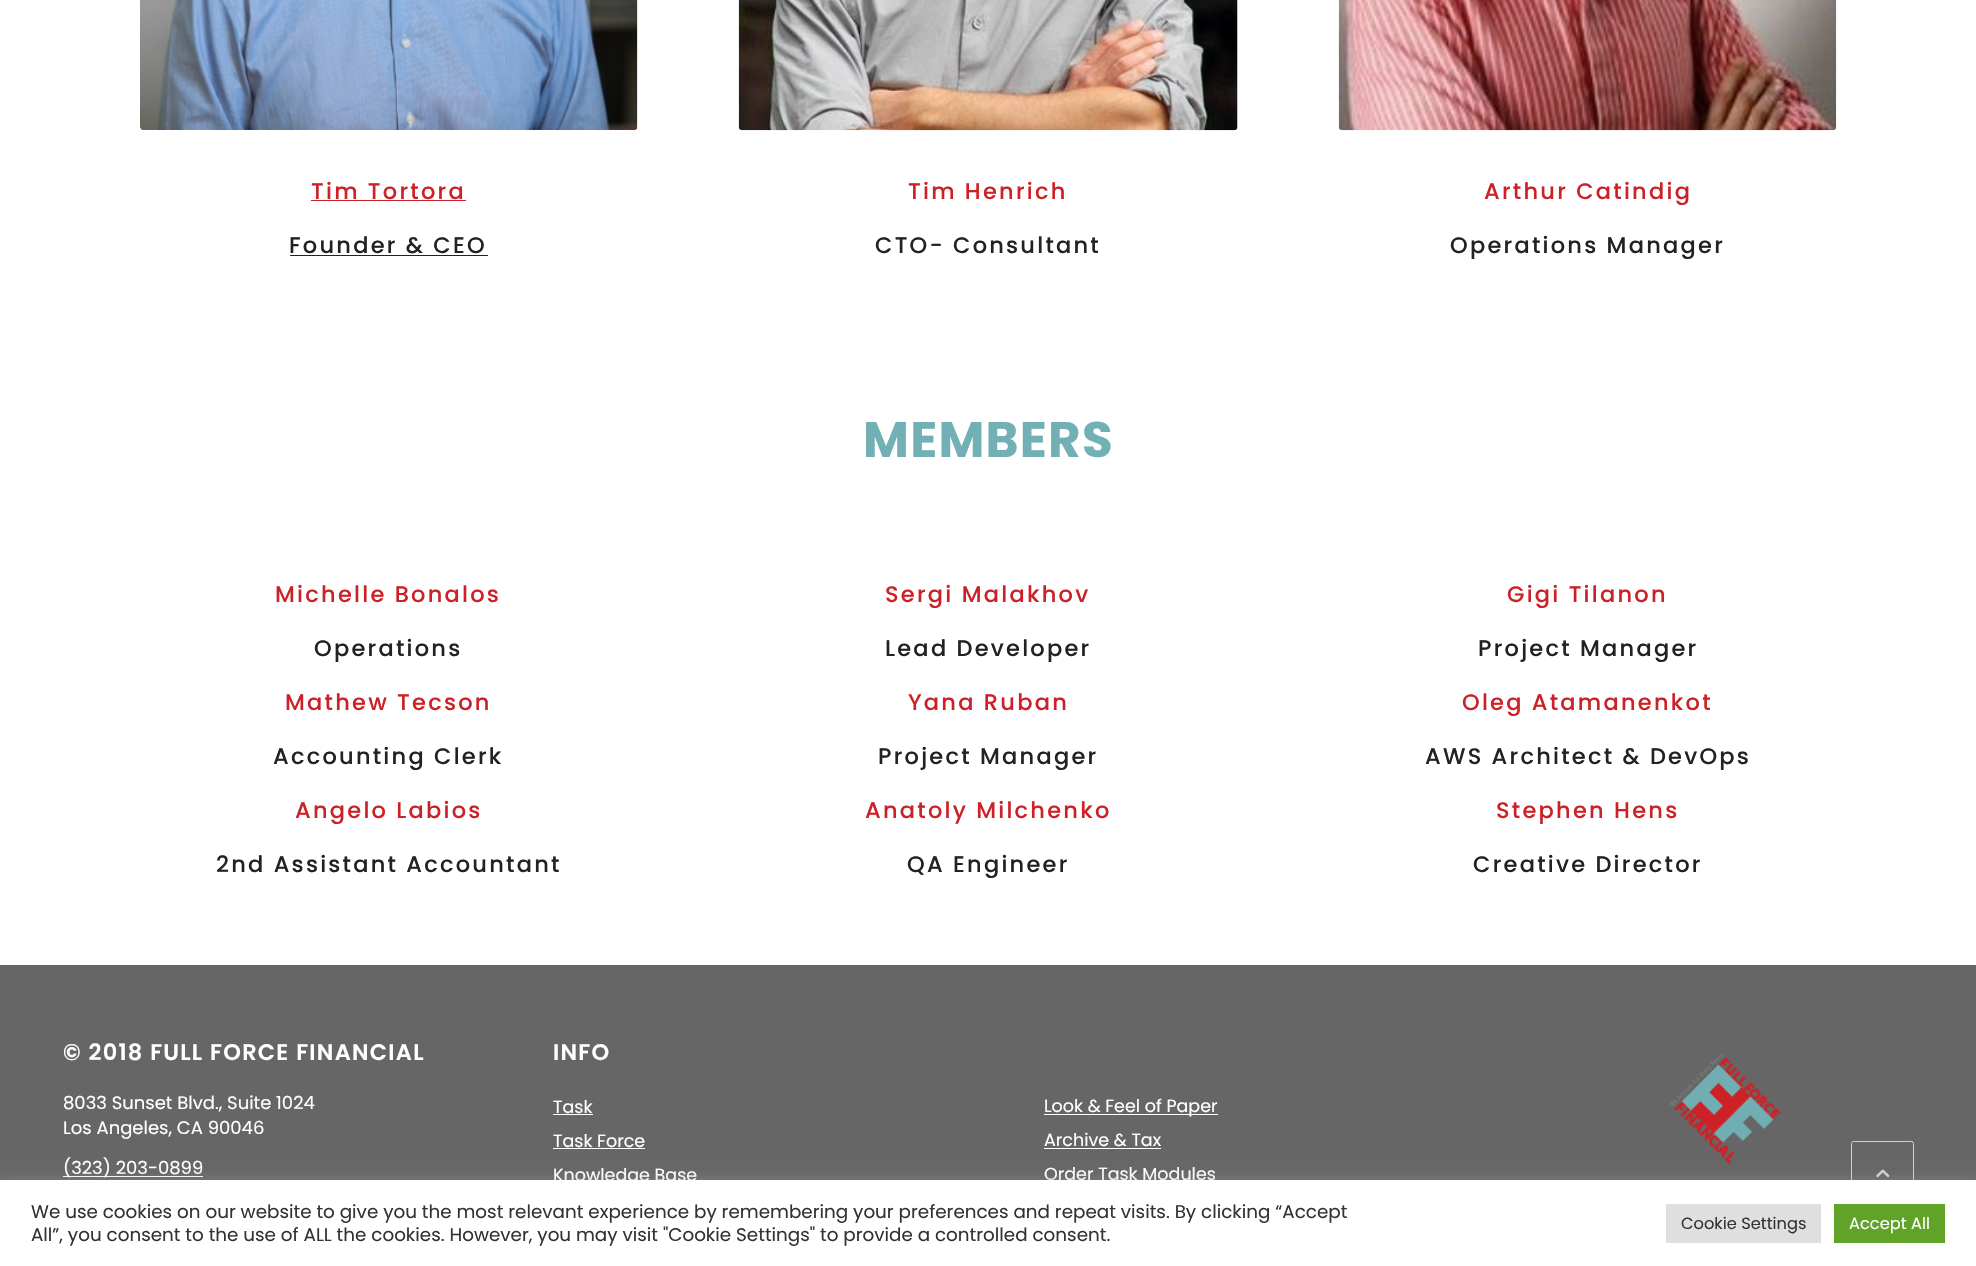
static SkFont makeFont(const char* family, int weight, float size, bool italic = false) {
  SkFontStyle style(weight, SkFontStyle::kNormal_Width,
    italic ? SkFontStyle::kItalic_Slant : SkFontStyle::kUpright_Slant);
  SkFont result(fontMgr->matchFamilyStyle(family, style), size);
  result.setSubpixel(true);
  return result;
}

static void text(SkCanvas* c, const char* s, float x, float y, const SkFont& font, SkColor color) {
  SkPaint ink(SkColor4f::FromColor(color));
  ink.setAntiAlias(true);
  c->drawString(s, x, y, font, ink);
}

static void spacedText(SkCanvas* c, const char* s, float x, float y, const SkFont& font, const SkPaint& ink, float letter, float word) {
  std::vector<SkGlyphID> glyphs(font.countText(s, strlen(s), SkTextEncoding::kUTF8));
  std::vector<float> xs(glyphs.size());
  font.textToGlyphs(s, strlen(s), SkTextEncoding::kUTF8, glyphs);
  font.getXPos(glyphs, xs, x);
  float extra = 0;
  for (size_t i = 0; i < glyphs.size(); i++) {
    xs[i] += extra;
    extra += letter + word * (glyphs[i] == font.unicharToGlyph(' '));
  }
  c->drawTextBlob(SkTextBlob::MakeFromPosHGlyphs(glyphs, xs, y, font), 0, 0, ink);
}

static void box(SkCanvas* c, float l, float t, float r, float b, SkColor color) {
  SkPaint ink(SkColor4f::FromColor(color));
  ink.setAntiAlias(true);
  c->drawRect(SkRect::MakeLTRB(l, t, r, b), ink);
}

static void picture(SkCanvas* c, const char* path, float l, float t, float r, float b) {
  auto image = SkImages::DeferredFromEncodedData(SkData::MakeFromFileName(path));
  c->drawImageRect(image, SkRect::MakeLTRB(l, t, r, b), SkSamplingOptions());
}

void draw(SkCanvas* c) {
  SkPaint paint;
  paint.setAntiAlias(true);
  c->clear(0xffffffff);
  picture(c, "img_01.png", 140, 0, 638, 130);
  SkFont face1 = makeFont("Poppins", 500, 22.5f);
  paint.setColor(0xffcc2127);
  spacedText(c, "Tim Tortora", 311, 199, face1, paint, 2.25f, 0);
  box(c, 311, 200, 466, 201, 0xffcc2127);
  paint.setColor(0xff222222);
  spacedText(c, "Founder & CEO", 289, 253, face1, paint, 2.25f, 0);
  box(c, 290, 255, 488, 256, 0xff222222);
  picture(c, "img_02.png", 738, 0, 1238, 131);
  paint.setColor(0xffcc2127);
  spacedText(c, "Tim Henrich", 908, 199, face1, paint, 2.25f, 0);
  paint.setColor(0xff222222);
  spacedText(c, "CTO- Consultant", 875, 253, face1, paint, 2.25f, 0);
  picture(c, "img_03.png", 1338, 0, 1837, 131);
  paint.setColor(0xffcc2127);
  spacedText(c, "Arthur Catindig", 1484, 199, face1, paint, 2.25f, 0);
  paint.setColor(0xff222222);
  spacedText(c, "Operations Manager", 1450, 253, face1, paint, 2.25f, 0);
  SkFont face2 = makeFont("Poppins", 700, 50);
  paint.setColor(0xff71b0b4);
  spacedText(c, "MEMBERS", 863, 457, face2, paint, 1.25f, 0);
  paint.setColor(0xffcc2127);
  spacedText(c, "Michelle Bonalos", 275, 602, face1, paint, 2.25f, 0);
  paint.setColor(0xff222222);
  spacedText(c, "Operations", 314, 656, face1, paint, 2.25f, 0);
  paint.setColor(0xffcc2127);
  spacedText(c, "Mathew Tecson", 285, 710, face1, paint, 2.25f, 0);
  paint.setColor(0xff222222);
  spacedText(c, "Accounting Clerk", 273, 764, face1, paint, 2.25f, 0);
  paint.setColor(0xffcc2127);
  spacedText(c, "Angelo Labios", 295, 818, face1, paint, 2.25f, 0);
  paint.setColor(0xff222222);
  spacedText(c, "2nd Assistant Accountant", 216, 872, face1, paint, 2.25f, 0);
  paint.setColor(0xffcc2127);
  spacedText(c, "Sergi Malakhov", 885, 602, face1, paint, 2.25f, 0);
  paint.setColor(0xff222222);
  spacedText(c, "Lead Developer", 885, 656, face1, paint, 2.25f, 0);
  paint.setColor(0xffcc2127);
  spacedText(c, "Yana Ruban", 908, 710, face1, paint, 2.25f, 0);
  paint.setColor(0xff222222);
  spacedText(c, "Project Manager", 878, 764, face1, paint, 2.25f, 0);
  paint.setColor(0xffcc2127);
  spacedText(c, "Anatoly Milchenko", 865, 818, face1, paint, 2.25f, 0);
  paint.setColor(0xff222222);
  spacedText(c, "QA Engineer", 907, 872, face1, paint, 2.25f, 0);
  paint.setColor(0xffcc2127);
  spacedText(c, "Gigi Tilanon", 1507, 602, face1, paint, 2.25f, 0);
  paint.setColor(0xff222222);
  spacedText(c, "Project Manager", 1478, 656, face1, paint, 2.25f, 0);
  paint.setColor(0xffcc2127);
  spacedText(c, "Oleg Atamanenkot", 1462, 710, face1, paint, 2.25f, 0);
  paint.setColor(0xff222222);
  spacedText(c, "AWS Architect & DevOps", 1425, 764, face1, paint, 2.25f, 0);
  paint.setColor(0xffcc2127);
  spacedText(c, "Stephen Hens", 1496, 818, face1, paint, 2.25f, 0);
  paint.setColor(0xff222222);
  spacedText(c, "Creative Director", 1473, 872, face1, paint, 2.25f, 0);
  box(c, 0, 965, 1976, 1180, 0xff666666);
  SkFont face3 = makeFont("Poppins", 600, 22.5f);
  paint.setColor(0xffffffff);
  spacedText(c, "© 2018 FULL FORCE FINANCIAL", 63, 1060, face3, paint, 1.25f, 0);
  SkFont face4 = makeFont("Poppins", 400, 18);
  text(c, "8033 Sunset Blvd., Suite 1024", 63, 1109, face4, 0xffffffff);
  text(c, "Los Angeles, CA 90046", 63, 1134, face4, 0xffffffff);
  box(c, 63, 1176, 203, 1177, 0xffffffff);
  text(c, "(323) 203-0899", 63, 1174, face4, 0xffffffff);
  spacedText(c, "INFO", 553, 1060, face3, paint, 1.25f, 0);
  SkFont face5 = makeFont("Poppins", 400, 17.5f);
  text(c, "Task", 553, 1113, face5, 0xffffffff);
  box(c, 553, 1114, 593, 1115, 0xffffffff);
  text(c, "Task Force", 553, 1147, face5, 0xffffffff);
  box(c, 553, 1148, 645, 1149, 0xffffffff);
  text(c, "Knowledge Base", 553, 1181, face5, 0xffffffff);
  box(c, 1044, 1114, 1218, 1115, 0xffffffff);
  text(c, "Look & Feel of Paper", 1044, 1112, face5, 0xffffffff);
  text(c, "Archive & Tax", 1044, 1146, face5, 0xffffffff);
  box(c, 1044, 1148, 1161, 1149, 0xffffffff);
  text(c, "Order Task Modules", 1044, 1180, face5, 0xffffffff);
  picture(c, "img_04.png", 1669, 1053, 1781, 1164);
  paint.setStyle(SkPaint::kStroke_Style);
  paint.setStrokeWidth(1);
  paint.setColor(0xffd1d1d1);
  c->drawRoundRect(SkRect::MakeLTRB(1851.5f, 1141.5f, 1913.5f, 1203.5f), 2, 2, paint);
  picture(c, "img_05.png", 1876, 1169, 1890, 1178);
  paint.setStyle(SkPaint::kFill_Style);
  paint.setColor(0x4dacabab);
  paint.setMaskFilter(SkMaskFilter::MakeBlur(kNormal_SkBlurStyle, 6));
  c->drawRect(SkRect::MakeLTRB(0, 1179, 1976, 1265), paint);
  paint.setMaskFilter(nullptr);
  box(c, 0, 1180, 1976, 1266, 0xffffffff);
  SkFont face6 = makeFont("Poppins", 400, 18.33f);
  text(c, "We use cookies on our website to give you the most relevant experience by remembering your preferences and repeat visits. By clicking “Accept", 31, 1218, face6, 0xff333333);
  text(c, "All”, you consent to the use of ALL the cookies. However, you may visit \"Cookie Settings\" to provide a controlled consent.", 31, 1241, face6, 0xff333333);
  box(c, 1666, 1204, 1821, 1243, 0xffdedfe0);
  SkFont face7 = makeFont("Poppins", 400, 16.25f);
  text(c, "Cookie Settings", 1681, 1229, face7, 0xff333333);
  box(c, 1834, 1204, 1945, 1243, 0xff61a229);
  text(c, "Accept All", 1849, 1229, face7, 0xffffffff);
}
